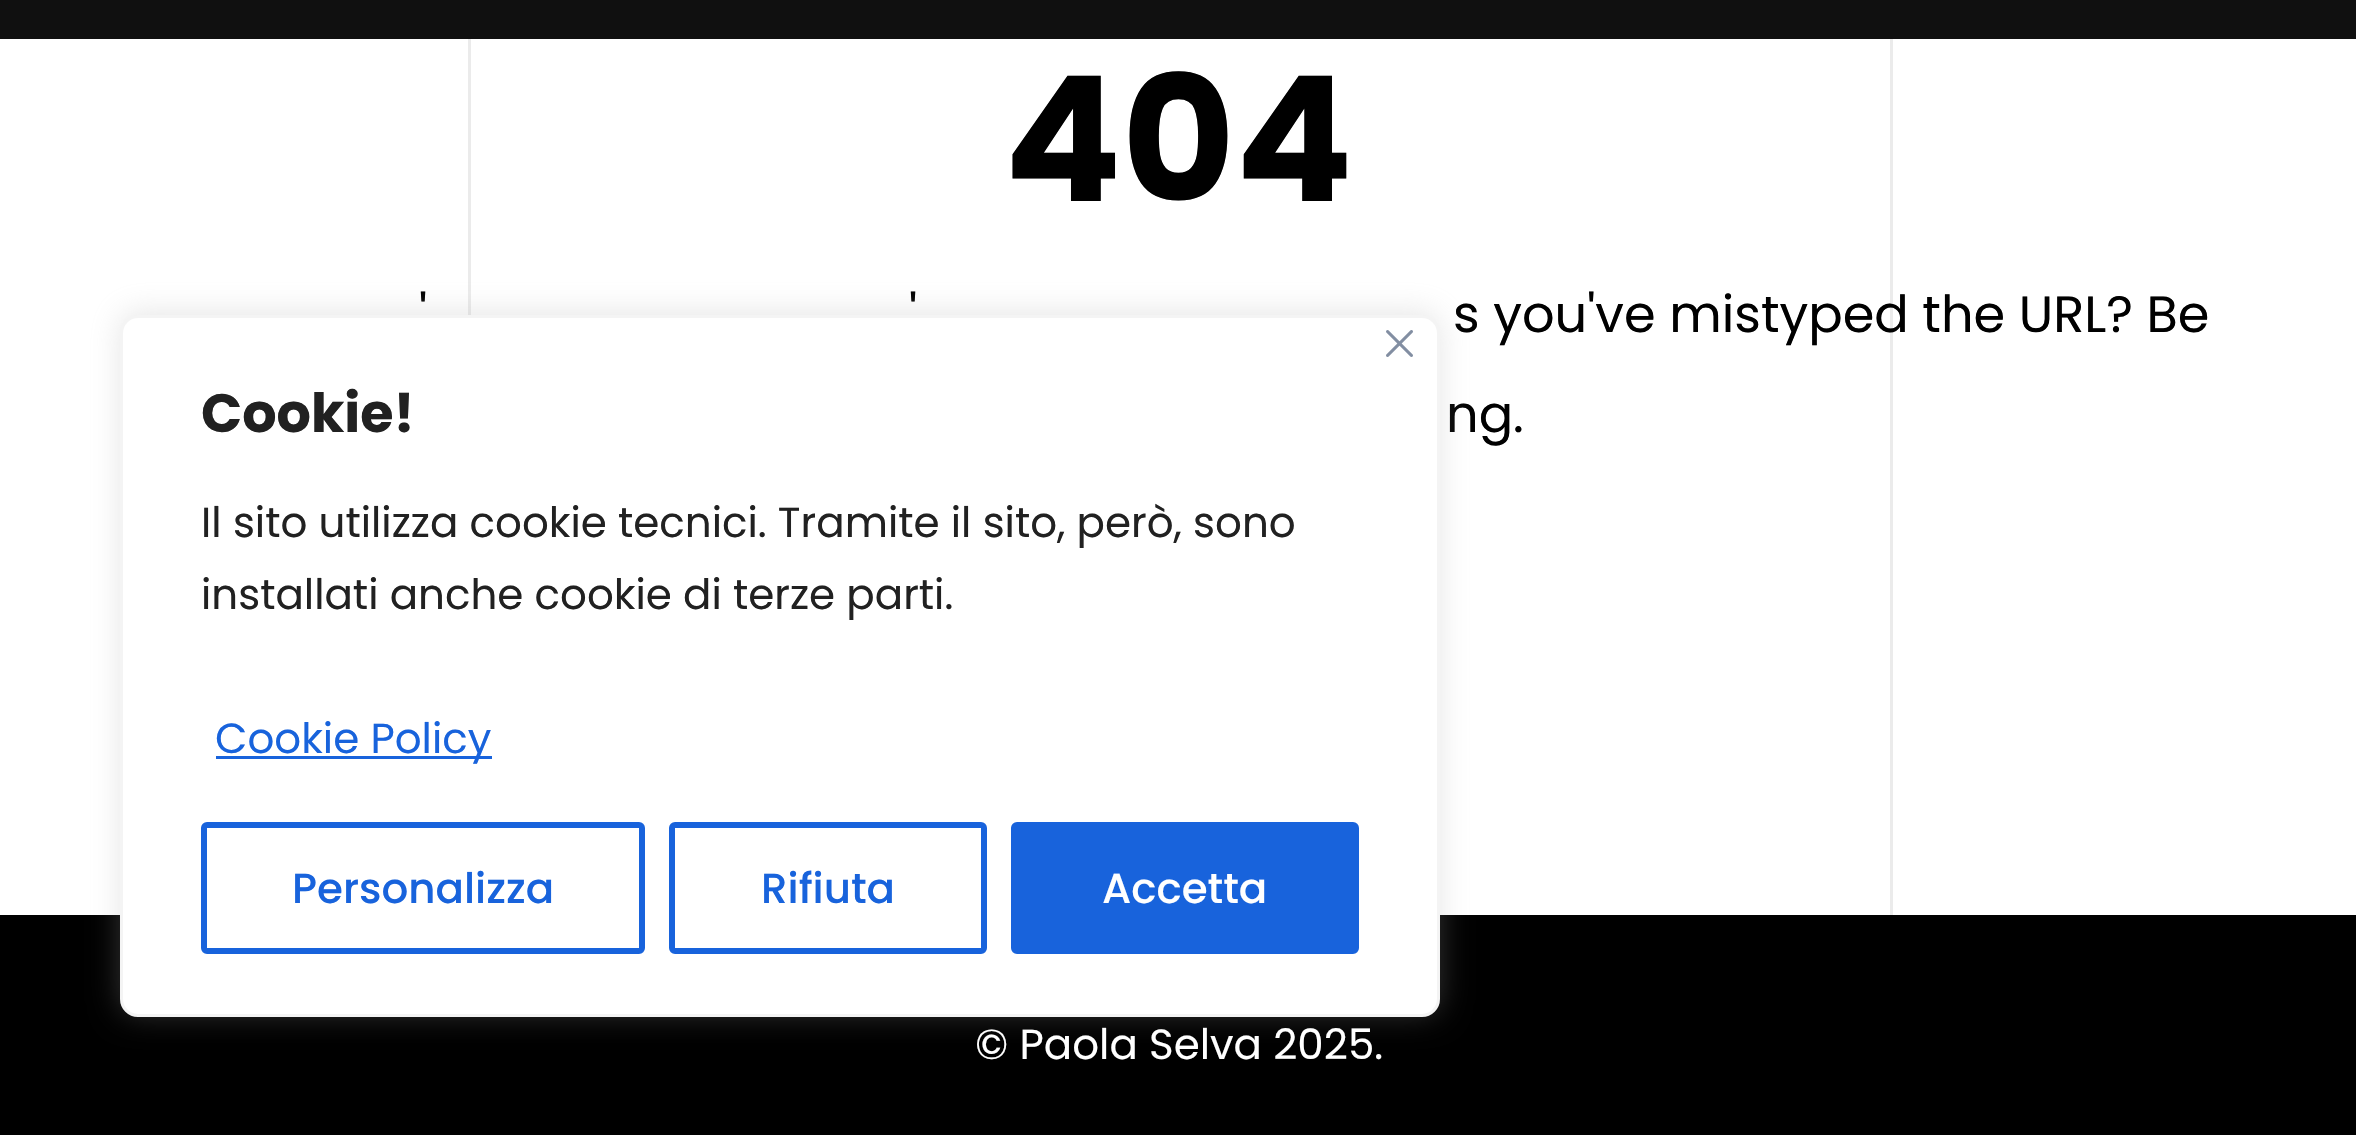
static SkFont makeFont(const char* family, int weight, float size, bool italic = false) {
  SkFontStyle style(weight, SkFontStyle::kNormal_Width,
    italic ? SkFontStyle::kItalic_Slant : SkFontStyle::kUpright_Slant);
  SkFont result(fontMgr->matchFamilyStyle(family, style), size);
  result.setSubpixel(true);
  return result;
}

static void text(SkCanvas* c, const char* s, float x, float y, const SkFont& font, SkColor color) {
  SkPaint ink(SkColor4f::FromColor(color));
  ink.setAntiAlias(true);
  c->drawString(s, x, y, font, ink);
}

static void box(SkCanvas* c, float l, float t, float r, float b, SkColor color) {
  SkPaint ink(SkColor4f::FromColor(color));
  ink.setAntiAlias(true);
  c->drawRect(SkRect::MakeLTRB(l, t, r, b), ink);
}

static void picture(SkCanvas* c, const char* path, float l, float t, float r, float b) {
  auto image = SkImages::DeferredFromEncodedData(SkData::MakeFromFileName(path));
  c->drawImageRect(image, SkRect::MakeLTRB(l, t, r, b), SkSamplingOptions());
}

void draw(SkCanvas* c) {
  SkPaint paint;
  paint.setAntiAlias(true);
  c->clear(0xffffffff);
  box(c, 0, 0, 2356, 39, 0xff101010);
  box(c, 468, 39, 471, 315, 0xffebebeb);
  box(c, 1890, 39, 1893, 915, 0xffebebeb);
  SkFont face1 = makeFont("Poppins", 700, 174);
  text(c, "404", 1004, 201, face1, 0xff000000);
  SkFont face2 = makeFont("Poppins", 400, 51);
  text(c, "'", 419, 332, face2, 0xff000000);
  text(c, "'", 909, 332, face2, 0xff000000);
  text(c, "s you've mistyped the URL? Be", 1453, 332, face2, 0xff000000);
  text(c, "ng.", 1446, 432, face2, 0xff000000);
  box(c, 0, 915, 2356, 1135, 0xff000000);
  paint.setColor(0x4dacabab);
  paint.setMaskFilter(SkMaskFilter::MakeBlur(kNormal_SkBlurStyle, 15));
  c->drawRoundRect(SkRect::MakeLTRB(120, 312, 1440, 1014), 18, 18, paint);
  paint.setMaskFilter(nullptr);
  paint.setColor(0xffffffff);
  c->drawRoundRect(SkRect::MakeLTRB(121.5f, 316.5f, 1438.5f, 1015.5f), 16.5f, 16.5f, paint);
  paint.setStyle(SkPaint::kStroke_Style);
  paint.setStrokeWidth(3);
  paint.setColor(0xfff4f4f4);
  c->drawRoundRect(SkRect::MakeLTRB(121.5f, 316.5f, 1438.5f, 1015.5f), 16.5f, 16.5f, paint);
  picture(c, "img_01.png", 1386, 330, 1413, 357);
  SkFont face3 = makeFont("Poppins", 700, 54);
  text(c, "Cookie!", 201, 432, face3, 0xff212121);
  SkFont face4 = makeFont("Poppins", 400, 42);
  text(c, "Il sito utilizza cookie tecnici. Tramite il sito, però, sono", 201, 537, face4, 0xff212121);
  text(c, "installati anche cookie di terze parti.", 201, 609, face4, 0xff212121);
  box(c, 216, 756, 492, 759, 0xff1863dc);
  text(c, "Cookie Policy", 215, 753, face4, 0xff1863dc);
  paint.setStrokeWidth(6);
  paint.setColor(0xff1863dc);
  c->drawRoundRect(SkRect::MakeLTRB(204, 825, 642, 951), 3, 3, paint);
  SkFont face5 = makeFont("Poppins", 500, 42);
  text(c, "Personalizza", 292, 903, face5, 0xff1863dc);
  c->drawRoundRect(SkRect::MakeLTRB(672, 825, 984, 951), 3, 3, paint);
  text(c, "Rifiuta", 761, 903, face5, 0xff1863dc);
  paint.setStyle(SkPaint::kFill_Style);
  c->drawRoundRect(SkRect::MakeLTRB(1014, 825, 1356, 951), 3, 3, paint);
  paint.setStyle(SkPaint::kStroke_Style);
  c->drawRoundRect(SkRect::MakeLTRB(1014, 825, 1356, 951), 3, 3, paint);
  text(c, "Accetta", 1102, 903, face5, 0xffffffff);
  text(c, "© Paola Selva 2025.", 975, 1059, face4, 0xffffffff);
}
